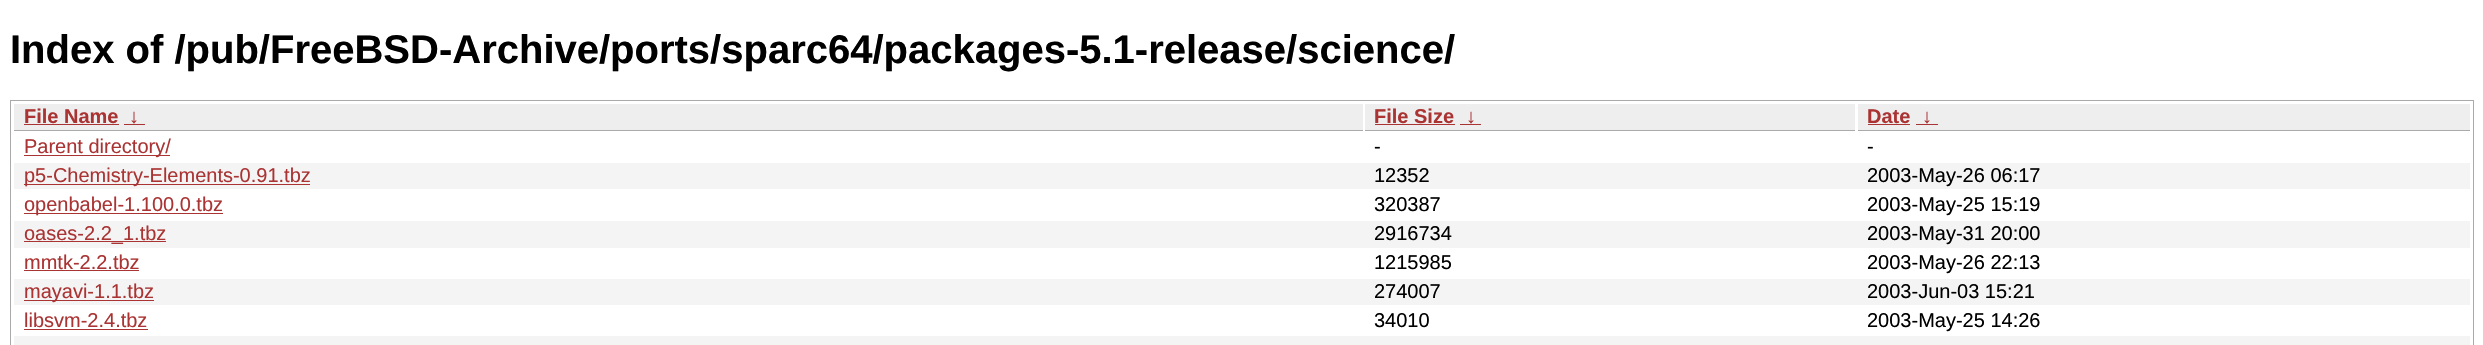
static SkFont makeFont(const char* family, int weight, float size, bool italic = false) {
  SkFontStyle style(weight, SkFontStyle::kNormal_Width,
    italic ? SkFontStyle::kItalic_Slant : SkFontStyle::kUpright_Slant);
  SkFont result(fontMgr->matchFamilyStyle(family, style), size);
  result.setSubpixel(true);
  return result;
}

static void text(SkCanvas* c, const char* s, float x, float y, const SkFont& font, SkColor color) {
  SkPaint ink(SkColor4f::FromColor(color));
  ink.setAntiAlias(true);
  c->drawString(s, x, y, font, ink);
}

static void box(SkCanvas* c, float l, float t, float r, float b, SkColor color) {
  SkPaint ink(SkColor4f::FromColor(color));
  ink.setAntiAlias(true);
  c->drawRect(SkRect::MakeLTRB(l, t, r, b), ink);
}

void draw(SkCanvas* c) {
  SkPaint paint;
  paint.setAntiAlias(true);
  c->clear(0xffffffff);
  SkFont face1 = makeFont("Liberation Sans", 700, 40);
  text(c, "Index of /pub/FreeBSD-Archive/ports/sparc64/packages-5.1-release/science/", 10, 63, face1, 0xff000000);
  paint.setStyle(SkPaint::kStroke_Style);
  paint.setStrokeWidth(1);
  paint.setColor(0xffaaaaaa);
  c->drawRect(SkRect::MakeLTRB(10.5f, 100.5f, 2473.5f, 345.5f), paint);
  box(c, 14, 104, 1363, 130, 0xffeeeeee);
  box(c, 14, 130, 1363, 131, 0xffaaaaaa);
  SkFont face2 = makeFont("Liberation Sans", 700, 20);
  text(c, "File Name", 24, 123, face2, 0xffaa3333);
  box(c, 24, 124, 119, 125, 0xffaa3333);
  text(c, "↓", 129, 123, face2, 0xffaa3333);
  box(c, 124, 124, 145, 125, 0xffaa3333);
  box(c, 1365, 104, 1855, 130, 0xffeeeeee);
  box(c, 1365, 130, 1855, 131, 0xffaaaaaa);
  text(c, "File Size", 1374, 123, face2, 0xffaa3333);
  box(c, 1375, 124, 1455, 125, 0xffaa3333);
  text(c, "↓", 1466, 123, face2, 0xffaa3333);
  box(c, 1460, 124, 1481, 125, 0xffaa3333);
  box(c, 1858, 104, 2470, 130, 0xffeeeeee);
  box(c, 1858, 130, 2470, 131, 0xffaaaaaa);
  text(c, "Date", 1867, 123, face2, 0xffaa3333);
  box(c, 1868, 124, 1910, 125, 0xffaa3333);
  text(c, "↓", 1922, 123, face2, 0xffaa3333);
  box(c, 1916, 124, 1938, 125, 0xffaa3333);
  box(c, 24, 155, 170, 156, 0xffaa3333);
  SkFont face3 = makeFont("Liberation Sans", 400, 20);
  text(c, "Parent directory/", 24, 153, face3, 0xffaa3333);
  text(c, "-", 1374, 153, face3, 0xff000000);
  text(c, "-", 1867, 153, face3, 0xff000000);
  box(c, 14, 163, 2470, 189, 0xfff4f4f4);
  box(c, 24, 184, 310, 185, 0xffaa3333);
  text(c, "p5-Chemistry-Elements-0.91.tbz", 24, 182, face3, 0xffaa3333);
  text(c, "12352", 1374, 182, face3, 0xff000000);
  text(c, "2003-May-26 06:17", 1867, 182, face3, 0xff000000);
  box(c, 24, 213, 223, 214, 0xffaa3333);
  text(c, "openbabel-1.100.0.tbz", 24, 211, face3, 0xffaa3333);
  text(c, "320387", 1374, 211, face3, 0xff000000);
  text(c, "2003-May-25 15:19", 1867, 211, face3, 0xff000000);
  box(c, 14, 221, 2470, 248, 0xfff4f4f4);
  box(c, 24, 241, 166, 242, 0xffaa3333);
  text(c, "oases-2.2_1.tbz", 24, 240, face3, 0xffaa3333);
  text(c, "2916734", 1374, 240, face3, 0xff000000);
  text(c, "2003-May-31 20:00", 1867, 240, face3, 0xff000000);
  text(c, "mmtk-2.2.tbz", 24, 269, face3, 0xffaa3333);
  box(c, 24, 270, 139, 271, 0xffaa3333);
  text(c, "1215985", 1374, 269, face3, 0xff000000);
  text(c, "2003-May-26 22:13", 1867, 269, face3, 0xff000000);
  box(c, 14, 279, 2470, 305, 0xfff4f4f4);
  box(c, 24, 300, 154, 301, 0xffaa3333);
  text(c, "mayavi-1.1.tbz", 24, 298, face3, 0xffaa3333);
  text(c, "274007", 1374, 298, face3, 0xff000000);
  text(c, "2003-Jun-03 15:21", 1867, 298, face3, 0xff000000);
  text(c, "libsvm-2.4.tbz", 24, 327, face3, 0xffaa3333);
  box(c, 24, 329, 148, 330, 0xffaa3333);
  text(c, "34010", 1374, 327, face3, 0xff000000);
  text(c, "2003-May-25 14:26", 1867, 327, face3, 0xff000000);
  box(c, 14, 336, 2470, 345, 0xfff4f4f4);
}
